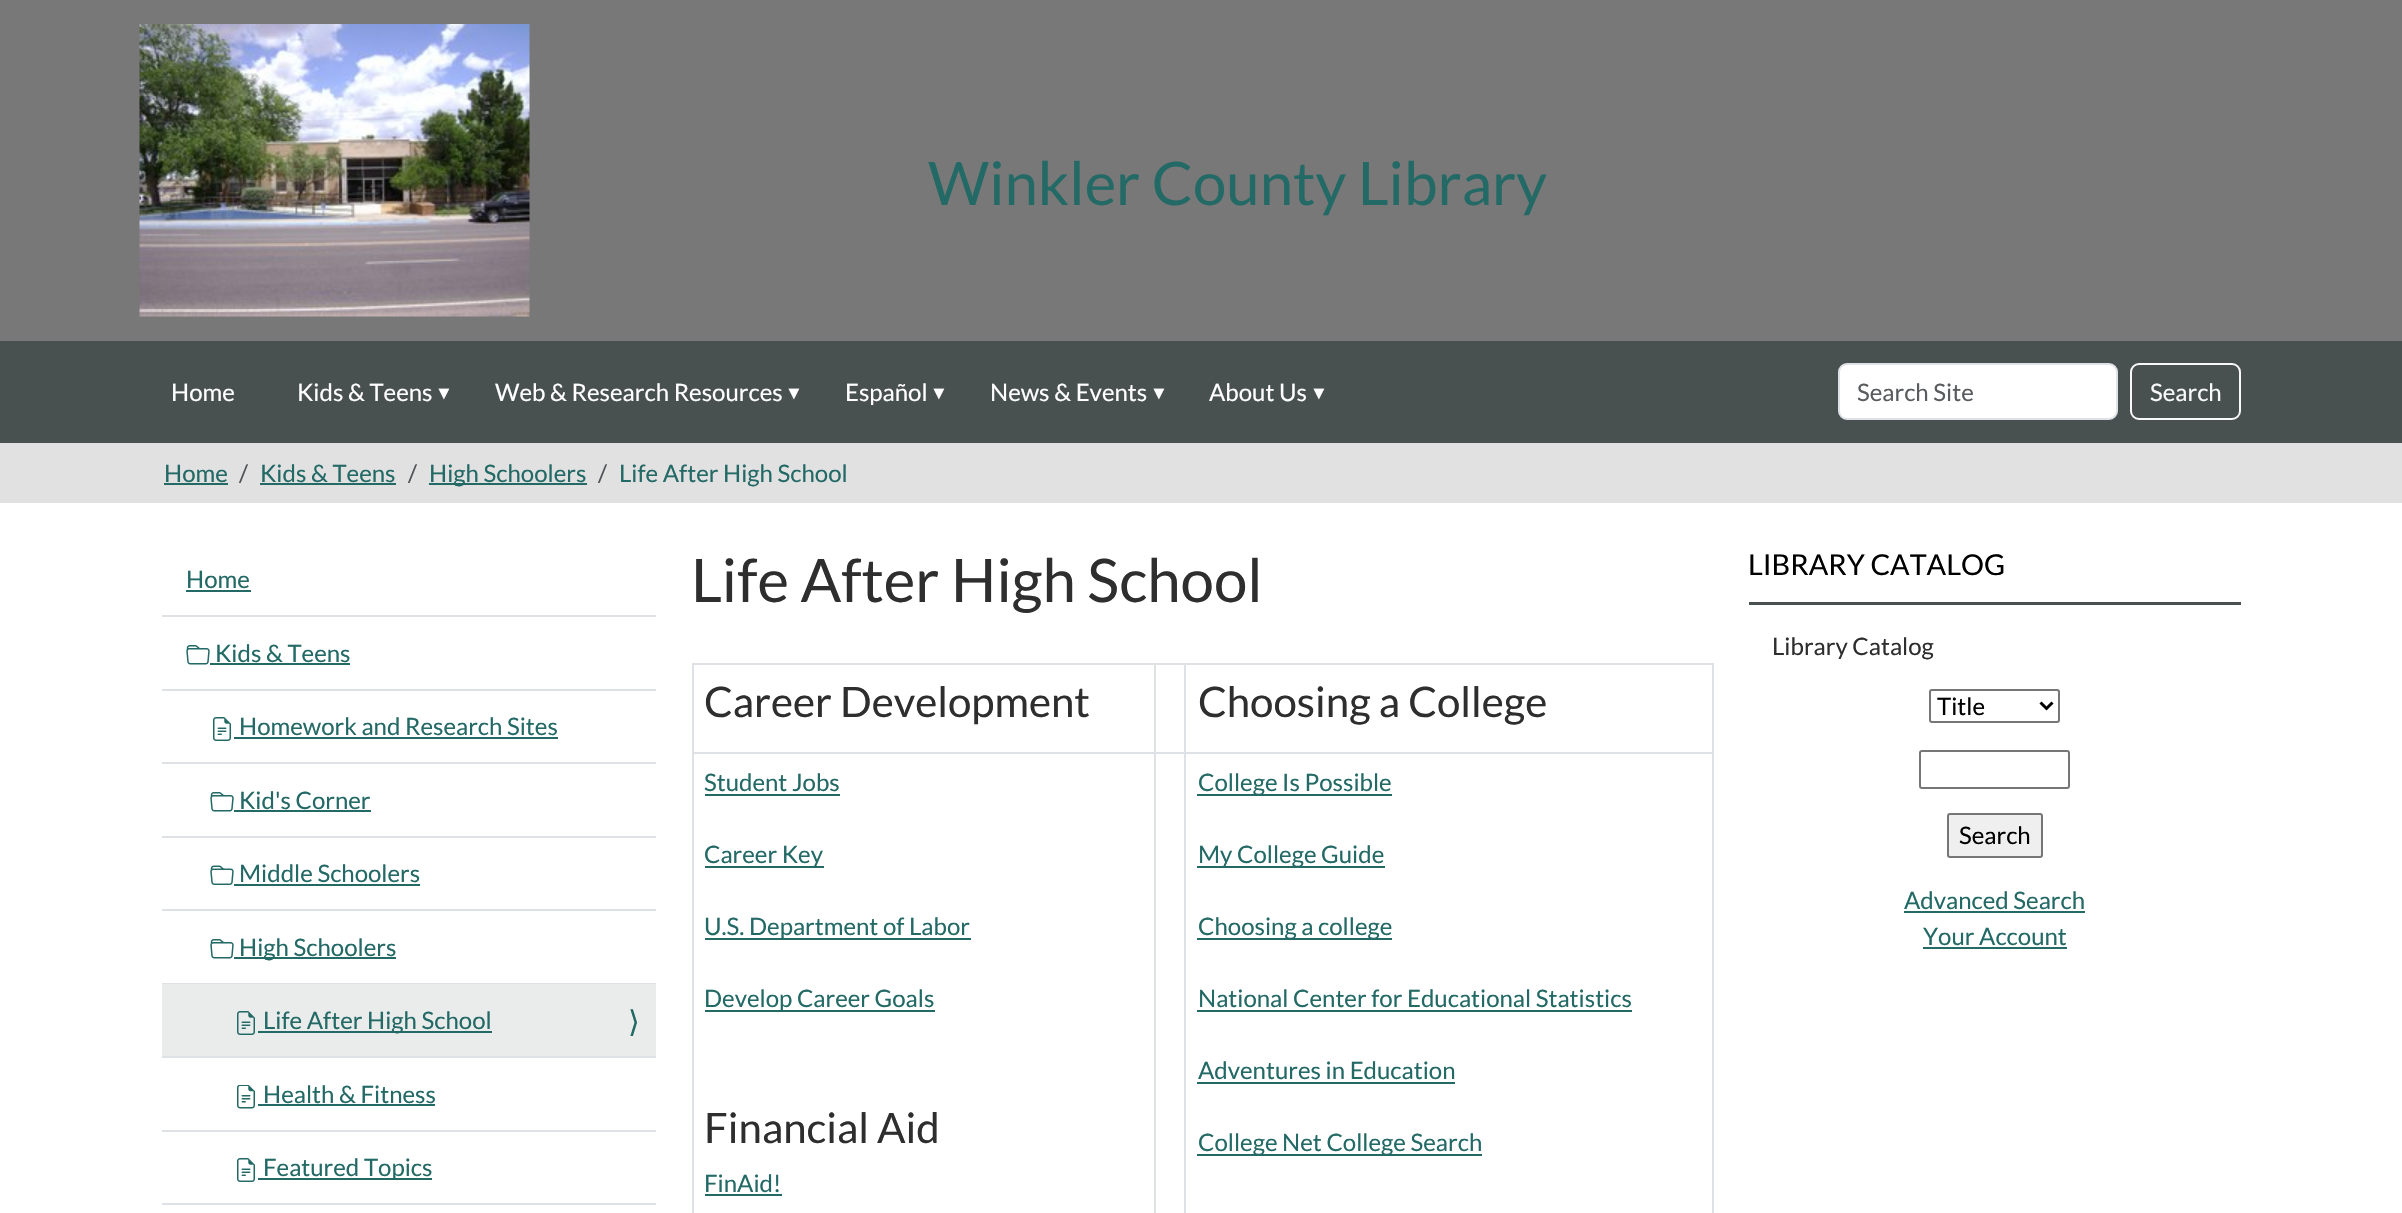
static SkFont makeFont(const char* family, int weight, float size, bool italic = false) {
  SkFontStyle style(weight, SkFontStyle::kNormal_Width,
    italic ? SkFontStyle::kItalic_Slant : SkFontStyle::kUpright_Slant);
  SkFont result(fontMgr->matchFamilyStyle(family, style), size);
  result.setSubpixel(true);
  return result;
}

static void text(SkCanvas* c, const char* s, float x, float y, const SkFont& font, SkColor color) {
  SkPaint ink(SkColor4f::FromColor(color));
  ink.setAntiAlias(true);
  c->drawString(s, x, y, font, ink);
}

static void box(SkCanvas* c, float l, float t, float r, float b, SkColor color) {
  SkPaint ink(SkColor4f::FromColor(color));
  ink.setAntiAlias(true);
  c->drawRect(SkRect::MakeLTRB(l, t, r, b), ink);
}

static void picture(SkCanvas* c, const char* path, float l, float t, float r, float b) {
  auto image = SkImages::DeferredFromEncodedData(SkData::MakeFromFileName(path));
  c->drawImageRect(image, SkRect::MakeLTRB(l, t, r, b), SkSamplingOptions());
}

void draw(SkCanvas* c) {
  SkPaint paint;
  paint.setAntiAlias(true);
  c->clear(0xffffffff);
  box(c, 0, 0, 2402, 341, 0xff787878);
  picture(c, "img_01.png", 139, 24, 530, 317);
  SkFont face1 = makeFont("Lato", 400, 60);
  text(c, "Winkler County Library", 928, 205, face1, 0xff236965);
  box(c, 0, 341, 2402, 443, 0xff495050);
  SkFont face2 = makeFont("Lato", 400, 24);
  text(c, "Home", 171, 401, face2, 0xffffffff);
  text(c, "Kids & Teens", 297, 401, face2, 0xffffffff);
  SkFont face3 = makeFont("Liberation Sans", 400, 18);
  text(c, "▼", 435, 399, face3, 0xffffffff);
  text(c, "Web & Research Resources", 495, 401, face2, 0xffffffff);
  text(c, "▼", 785, 399, face3, 0xffffffff);
  text(c, "Español", 845, 401, face2, 0xffffffff);
  text(c, "▼", 930, 399, face3, 0xffffffff);
  text(c, "News & Events", 990, 401, face2, 0xffffffff);
  text(c, "▼", 1150, 399, face3, 0xffffffff);
  text(c, "About Us", 1209, 401, face2, 0xffffffff);
  text(c, "▼", 1310, 399, face3, 0xffffffff);
  paint.setColor(0xffffffff);
  c->drawRoundRect(SkRect::MakeLTRB(1839, 364, 2117, 419), 8, 8, paint);
  paint.setStyle(SkPaint::kStroke_Style);
  paint.setStrokeWidth(2);
  paint.setColor(0xffdee2e6);
  c->drawRoundRect(SkRect::MakeLTRB(1839, 364, 2117, 419), 8, 8, paint);
  text(c, "Search Site", 1857, 401, face2, 0xff595c5f);
  paint.setColor(0xfff8f9fa);
  c->drawRoundRect(SkRect::MakeLTRB(2131, 364, 2240, 419), 8, 8, paint);
  text(c, "Search", 2150, 401, face2, 0xfff8f9fa);
  box(c, 0, 443, 2402, 503, 0xffe1e1e1);
  text(c, "Home", 164, 482, face2, 0xff236965);
  box(c, 164, 483, 228, 485, 0xff236965);
  text(c, "/", 239, 482, face2, 0xff515457);
  text(c, "Kids & Teens", 260, 482, face2, 0xff236965);
  box(c, 260, 483, 396, 485, 0xff236965);
  text(c, "/", 408, 482, face2, 0xff515457);
  box(c, 429, 483, 587, 485, 0xff236965);
  text(c, "High Schoolers", 429, 482, face2, 0xff236965);
  text(c, "/", 598, 482, face2, 0xff515457);
  text(c, "Life After High School", 619, 482, face2, 0xff236965);
  text(c, "Home", 186, 588, face2, 0xff236965);
  box(c, 186, 590, 251, 592, 0xff236965);
  box(c, 162, 615, 656, 617, 0xffdee2e6);
  picture(c, "img_02.png", 186, 645, 210, 665);
  text(c, "Kids & Teens", 215, 662, face2, 0xff236965);
  box(c, 210, 663, 350, 665, 0xff236965);
  box(c, 162, 689, 656, 691, 0xffdee2e6);
  picture(c, "img_03.png", 213, 717, 231, 741);
  text(c, "Homework and Research Sites", 239, 735, face2, 0xff236965);
  box(c, 234, 737, 558, 739, 0xff236965);
  box(c, 162, 762, 656, 764, 0xffdee2e6);
  picture(c, "img_02.png", 210, 792, 234, 812);
  text(c, "Kid's Corner", 239, 809, face2, 0xff236965);
  box(c, 234, 810, 371, 812, 0xff236965);
  box(c, 162, 836, 656, 838, 0xffdee2e6);
  picture(c, "img_04.png", 210, 865, 234, 885);
  text(c, "Middle Schoolers", 239, 882, face2, 0xff236965);
  box(c, 234, 884, 420, 886, 0xff236965);
  box(c, 162, 909, 656, 911, 0xffdee2e6);
  picture(c, "img_02.png", 210, 939, 234, 959);
  box(c, 234, 957, 396, 959, 0xff236965);
  text(c, "High Schoolers", 239, 956, face2, 0xff236965);
  box(c, 162, 983, 656, 984, 0xffdee2e6);
  box(c, 162, 984, 656, 1056, 0xffeaecec);
  picture(c, "img_05.png", 237, 1011, 255, 1035);
  box(c, 258, 1031, 492, 1033, 0xff236965);
  text(c, "Life After High School", 263, 1029, face2, 0xff236965);
  SkFont face4 = makeFont("DejaVu Sans", 400, 30);
  text(c, "⟩", 628, 1032, face4, 0xff236965);
  box(c, 162, 1056, 656, 1058, 0xffdee2e6);
  picture(c, "img_06.png", 237, 1085, 255, 1109);
  text(c, "Health & Fitness", 263, 1103, face2, 0xff236965);
  box(c, 258, 1104, 435, 1106, 0xff236965);
  box(c, 162, 1130, 656, 1132, 0xffdee2e6);
  picture(c, "img_03.png", 237, 1158, 255, 1182);
  box(c, 258, 1178, 432, 1180, 0xff236965);
  text(c, "Featured Topics", 263, 1176, face2, 0xff236965);
  box(c, 162, 1203, 656, 1205, 0xffdee2e6);
  text(c, "Life After High School", 691, 602, face1, 0xff2e2e2e);
  box(c, 692, 663, 1713, 665, 0xffdee2e6);
  SkFont face5 = makeFont("Lato", 400, 42);
  text(c, "Career Development", 704, 717, face5, 0xff2e2e2e);
  text(c, "Choosing a College", 1198, 717, face5, 0xff2e2e2e);
  box(c, 692, 752, 1713, 754, 0xffdee2e6);
  box(c, 692, 663, 694, 1213, 0xffdee2e6);
  text(c, "Student Jobs", 704, 791, face2, 0xff236965);
  box(c, 705, 794, 840, 796, 0xff236965);
  box(c, 705, 866, 824, 868, 0xff236965);
  text(c, "Career Key", 704, 863, face2, 0xff236965);
  box(c, 705, 938, 971, 940, 0xff236965);
  text(c, "U.S. Department of Labor", 704, 935, face2, 0xff236965);
  box(c, 705, 1010, 935, 1012, 0xff236965);
  text(c, "Develop Career Goals", 704, 1007, face2, 0xff236965);
  text(c, "Financial Aid", 704, 1143, face5, 0xff2e2e2e);
  text(c, "FinAid!", 704, 1192, face2, 0xff236965);
  box(c, 705, 1194, 782, 1196, 0xff236965);
  box(c, 1154, 663, 1156, 1213, 0xffdee2e6);
  box(c, 1712, 663, 1714, 1213, 0xffdee2e6);
  box(c, 1184, 663, 1186, 1213, 0xffdee2e6);
  box(c, 1197, 794, 1392, 796, 0xff236965);
  text(c, "College Is Possible", 1198, 791, face2, 0xff236965);
  box(c, 1197, 866, 1385, 868, 0xff236965);
  text(c, "My College Guide", 1198, 863, face2, 0xff236965);
  box(c, 1197, 938, 1392, 940, 0xff236965);
  text(c, "Choosing a college", 1198, 935, face2, 0xff236965);
  text(c, "National Center for Educational Statistics", 1198, 1007, face2, 0xff236965);
  box(c, 1197, 1010, 1632, 1012, 0xff236965);
  text(c, "Adventures in Education", 1198, 1079, face2, 0xff236965);
  box(c, 1197, 1082, 1455, 1084, 0xff236965);
  box(c, 1197, 1154, 1482, 1156, 0xff236965);
  text(c, "College Net College Search", 1198, 1151, face2, 0xff236965);
  box(c, 1749, 602, 2241, 605, 0xff495050);
  SkFont face6 = makeFont("Lato", 400, 28.75f);
  text(c, "LIBRARY CATALOG", 1748, 575, face6, 0xff000000);
  text(c, "Library Catalog", 1772, 655, face2, 0xff2e2e2e);
  paint.setColor(0xff767676);
  c->drawRoundRect(SkRect::MakeLTRB(1930, 690, 2059, 722), 2, 2, paint);
  paint.setStrokeWidth(3);
  paint.setColor(0xff000000);
  c->drawPath(SkPathBuilder().moveTo(2040.5f, 702.5f).lineTo(2046.5f, 708.5f).lineTo(2052.5f, 702.5f).detach(), paint);
  text(c, "Title", 1937, 715, face2, 0xff000000);
  paint.setStrokeWidth(2);
  paint.setColor(0xff767676);
  c->drawRoundRect(SkRect::MakeLTRB(1920, 751, 2069, 788), 2, 2, paint);
  paint.setStyle(SkPaint::kFill_Style);
  paint.setColor(0xffefefef);
  c->drawRoundRect(SkRect::MakeLTRB(1948, 814, 2042, 857), 2, 2, paint);
  paint.setStyle(SkPaint::kStroke_Style);
  paint.setColor(0xff767676);
  c->drawRoundRect(SkRect::MakeLTRB(1948, 814, 2042, 857), 2, 2, paint);
  text(c, "Search", 1959, 844, face2, 0xff000000);
  text(c, "Advanced Search", 1904, 909, face2, 0xff236965);
  box(c, 1904, 911, 2085, 913, 0xff236965);
  text(c, "Your Account", 1923, 945, face2, 0xff236965);
  box(c, 1923, 947, 2067, 949, 0xff236965);
}
